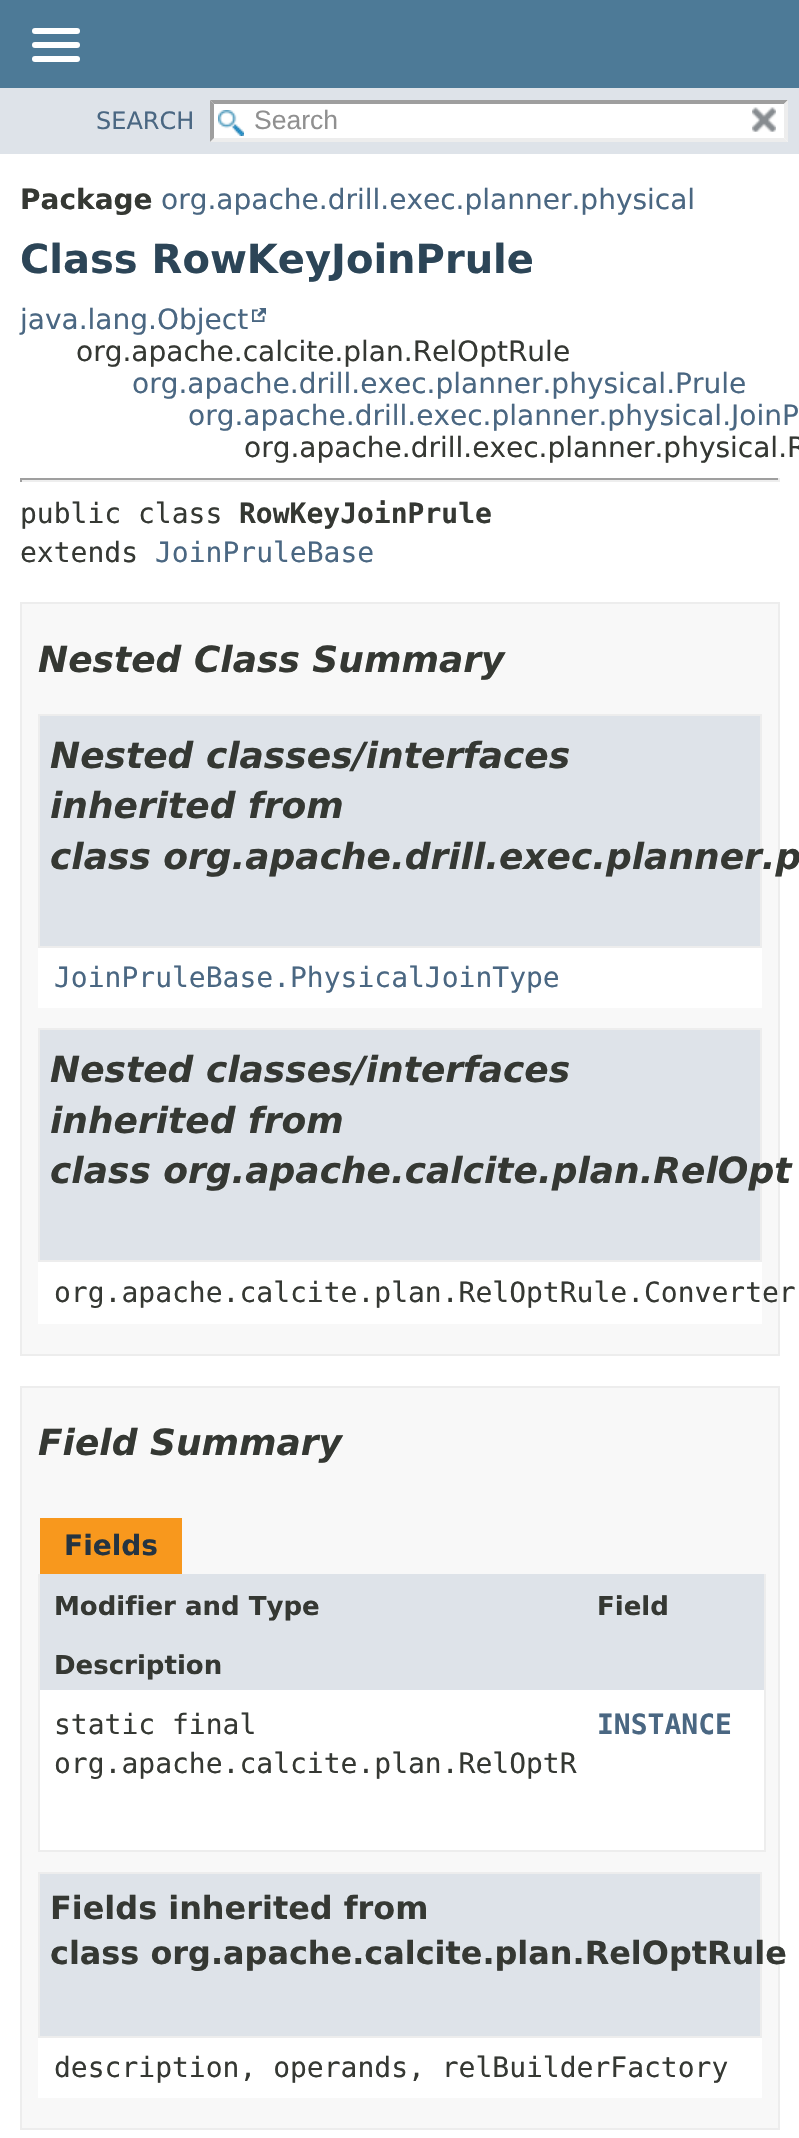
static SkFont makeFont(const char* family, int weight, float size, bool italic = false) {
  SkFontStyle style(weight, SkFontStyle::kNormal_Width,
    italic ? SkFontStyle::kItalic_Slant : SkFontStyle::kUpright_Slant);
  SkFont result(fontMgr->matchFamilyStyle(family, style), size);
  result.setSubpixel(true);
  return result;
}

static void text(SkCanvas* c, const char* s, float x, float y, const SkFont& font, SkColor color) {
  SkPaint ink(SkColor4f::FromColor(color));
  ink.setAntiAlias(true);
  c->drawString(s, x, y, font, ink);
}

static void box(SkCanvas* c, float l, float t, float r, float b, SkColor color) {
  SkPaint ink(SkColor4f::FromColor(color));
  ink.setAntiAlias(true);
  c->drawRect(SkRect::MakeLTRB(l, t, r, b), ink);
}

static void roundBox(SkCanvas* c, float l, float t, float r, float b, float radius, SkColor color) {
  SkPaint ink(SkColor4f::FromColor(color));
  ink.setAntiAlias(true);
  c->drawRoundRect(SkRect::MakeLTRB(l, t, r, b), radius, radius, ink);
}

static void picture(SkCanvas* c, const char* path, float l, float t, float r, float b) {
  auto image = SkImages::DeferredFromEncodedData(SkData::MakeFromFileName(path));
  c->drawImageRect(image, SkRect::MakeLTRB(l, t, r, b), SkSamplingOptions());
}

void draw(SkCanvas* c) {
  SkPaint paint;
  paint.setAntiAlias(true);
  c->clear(0xffffffff);
  box(c, 0, 0, 799, 88, 0xff4d7a97);
  roundBox(c, 32, 28, 80, 34, 3, 0xffffffff);
  roundBox(c, 32, 42, 80, 48, 3, 0xffffffff);
  roundBox(c, 32, 56, 80, 62, 3, 0xffffffff);
  box(c, 0, 88, 799, 154, 0xffdee3e9);
  SkFont face1 = makeFont("DejaVu Sans", 400, 24);
  text(c, "SEARCH", 96, 129, face1, 0xff4a6782);
  box(c, 210, 100, 788, 142, 0xffffffff);
  picture(c, "img_01.png", 218, 110, 244, 136);
  paint.setColor(0xff9e9e9e);
  c->drawPath(SkPathBuilder().moveTo(210, 100).lineTo(788, 100).lineTo(784, 104).lineTo(214, 104).close().detach(), paint);
  paint.setColor(0xffededed);
  c->drawPath(SkPathBuilder().moveTo(788, 100).lineTo(788, 142).lineTo(784, 138).lineTo(784, 104).close().detach(), paint);
  c->drawPath(SkPathBuilder().moveTo(788, 142).lineTo(210, 142).lineTo(214, 138).lineTo(784, 138).close().detach(), paint);
  paint.setColor(0xff9e9e9e);
  c->drawPath(SkPathBuilder().moveTo(210, 142).lineTo(210, 100).lineTo(214, 104).lineTo(214, 138).close().detach(), paint);
  SkFont face2 = makeFont("Liberation Sans", 400, 26.5f);
  text(c, "Search", 254, 129, face2, 0xff909090);
  picture(c, "img_02.png", 752, 107, 776, 132);
  SkFont face3 = makeFont("DejaVu Sans", 700, 28);
  text(c, "Package", 20, 209, face3, 0xff353833);
  SkFont face4 = makeFont("DejaVu Sans", 400, 28);
  text(c, "org.apache.drill.exec.planner.physical", 161, 209, face4, 0xff4a6782);
  SkFont face5 = makeFont("DejaVu Sans", 700, 40);
  text(c, "Class RowKeyJoinPrule", 20, 273, face5, 0xff2c4557);
  text(c, "java.lang.Object", 20, 329, face4, 0xff4a6782);
  picture(c, "img_03.png", 252, 308, 266, 322);
  text(c, "org.apache.calcite.plan.RelOptRule", 76, 361, face4, 0xff353833);
  text(c, "org.apache.drill.exec.planner.physical.Prule", 132, 393, face4, 0xff4a6782);
  text(c, "org.apache.drill.exec.planner.physical.JoinP", 188, 425, face4, 0xff4a6782);
  text(c, "org.apache.drill.exec.planner.physical.R", 244, 457, face4, 0xff353833);
  box(c, 20, 478, 780, 480, 0xff9f9f9f);
  box(c, 778, 478, 780, 482, 0xffeeeeee);
  box(c, 20, 480, 780, 482, 0xffeeeeee);
  box(c, 20, 478, 22, 482, 0xff9f9f9f);
  SkFont face6 = makeFont("DejaVu Sans Mono", 400, 28);
  text(c, "public class", 20, 523, face6, 0xff353833);
  SkFont face7 = makeFont("DejaVu Sans Mono", 700, 28);
  text(c, "RowKeyJoinPrule", 239, 523, face7, 0xff353833);
  text(c, "extends", 20, 562, face6, 0xff353833);
  text(c, "JoinPruleBase", 155, 562, face6, 0xff4a6782);
  paint.setColor(0xfff8f8f8);
  c->drawRect(SkRect::MakeLTRB(21, 603, 779, 1355), paint);
  paint.setStyle(SkPaint::kStroke_Style);
  paint.setStrokeWidth(2);
  paint.setColor(0xffededed);
  c->drawRect(SkRect::MakeLTRB(21, 603, 779, 1355), paint);
  SkFont face8 = makeFont("DejaVu Sans", 700, 36, true);
  text(c, "Nested Class Summary", 38, 672, face8, 0xff353833);
  box(c, 38, 948, 762, 1008, 0xffffffff);
  paint.setStyle(SkPaint::kFill_Style);
  paint.setColor(0xffdee3e9);
  c->drawRect(SkRect::MakeLTRB(39, 715, 761, 947), paint);
  paint.setStyle(SkPaint::kStroke_Style);
  paint.setColor(0xffededed);
  c->drawRect(SkRect::MakeLTRB(39, 715, 761, 947), paint);
  text(c, "Nested classes/interfaces", 50, 768, face8, 0xff353833);
  text(c, "inherited from", 50, 818, face8, 0xff353833);
  text(c, "class org.apache.drill.exec.planner.p", 50, 869, face8, 0xff353833);
  text(c, "JoinPruleBase.PhysicalJoinType", 54, 987, face6, 0xff4a6782);
  box(c, 38, 1262, 762, 1324, 0xffffffff);
  paint.setStyle(SkPaint::kFill_Style);
  paint.setColor(0xffdee3e9);
  c->drawRect(SkRect::MakeLTRB(39, 1029, 761, 1261), paint);
  paint.setStyle(SkPaint::kStroke_Style);
  paint.setColor(0xffededed);
  c->drawRect(SkRect::MakeLTRB(39, 1029, 761, 1261), paint);
  text(c, "Nested classes/interfaces", 50, 1082, face8, 0xff353833);
  text(c, "inherited from", 50, 1133, face8, 0xff353833);
  text(c, "class org.apache.calcite.plan.RelOpt", 50, 1183, face8, 0xff353833);
  text(c, "org.apache.calcite.plan.RelOptRule.Converter", 54, 1302, face6, 0xff353833);
  paint.setStyle(SkPaint::kFill_Style);
  paint.setColor(0xfff8f8f8);
  c->drawRect(SkRect::MakeLTRB(21, 1387, 779, 2129), paint);
  paint.setStyle(SkPaint::kStroke_Style);
  paint.setColor(0xffededed);
  c->drawRect(SkRect::MakeLTRB(21, 1387, 779, 2129), paint);
  text(c, "Field Summary", 38, 1455, face8, 0xff353833);
  box(c, 40, 1518, 182, 1574, 0xfff8981d);
  text(c, "Fields", 64, 1555, face3, 0xff253441);
  box(c, 764, 1574, 766, 1852, 0xffededed);
  box(c, 38, 1850, 766, 1852, 0xffededed);
  box(c, 38, 1574, 40, 1852, 0xffededed);
  box(c, 40, 1574, 764, 1690, 0xffdee3e9);
  SkFont face9 = makeFont("DejaVu Sans", 700, 26);
  text(c, "Modifier and Type", 54, 1615, face9, 0xff353833);
  text(c, "Field", 597, 1615, face9, 0xff353833);
  text(c, "Description", 54, 1674, face9, 0xff353833);
  box(c, 40, 1690, 764, 1850, 0xffffffff);
  text(c, "static final", 54, 1734, face6, 0xff353833);
  text(c, "org.apache.calcite.plan.RelOptR", 54, 1773, face6, 0xff353833);
  text(c, "INSTANCE", 597, 1734, face7, 0xff4a6782);
  box(c, 38, 2038, 762, 2098, 0xffffffff);
  paint.setStyle(SkPaint::kFill_Style);
  paint.setColor(0xffdee3e9);
  c->drawRect(SkRect::MakeLTRB(39, 1873, 761, 2037), paint);
  paint.setStyle(SkPaint::kStroke_Style);
  paint.setColor(0xffededed);
  c->drawRect(SkRect::MakeLTRB(39, 1873, 761, 2037), paint);
  SkFont face10 = makeFont("DejaVu Sans", 700, 31.9f);
  text(c, "Fields inherited from", 50, 1919, face10, 0xff353833);
  text(c, "class org.apache.calcite.plan.RelOptRule", 50, 1964, face10, 0xff353833);
  text(c, "description, operands, relBuilderFactory", 54, 2077, face6, 0xff353833);
}
